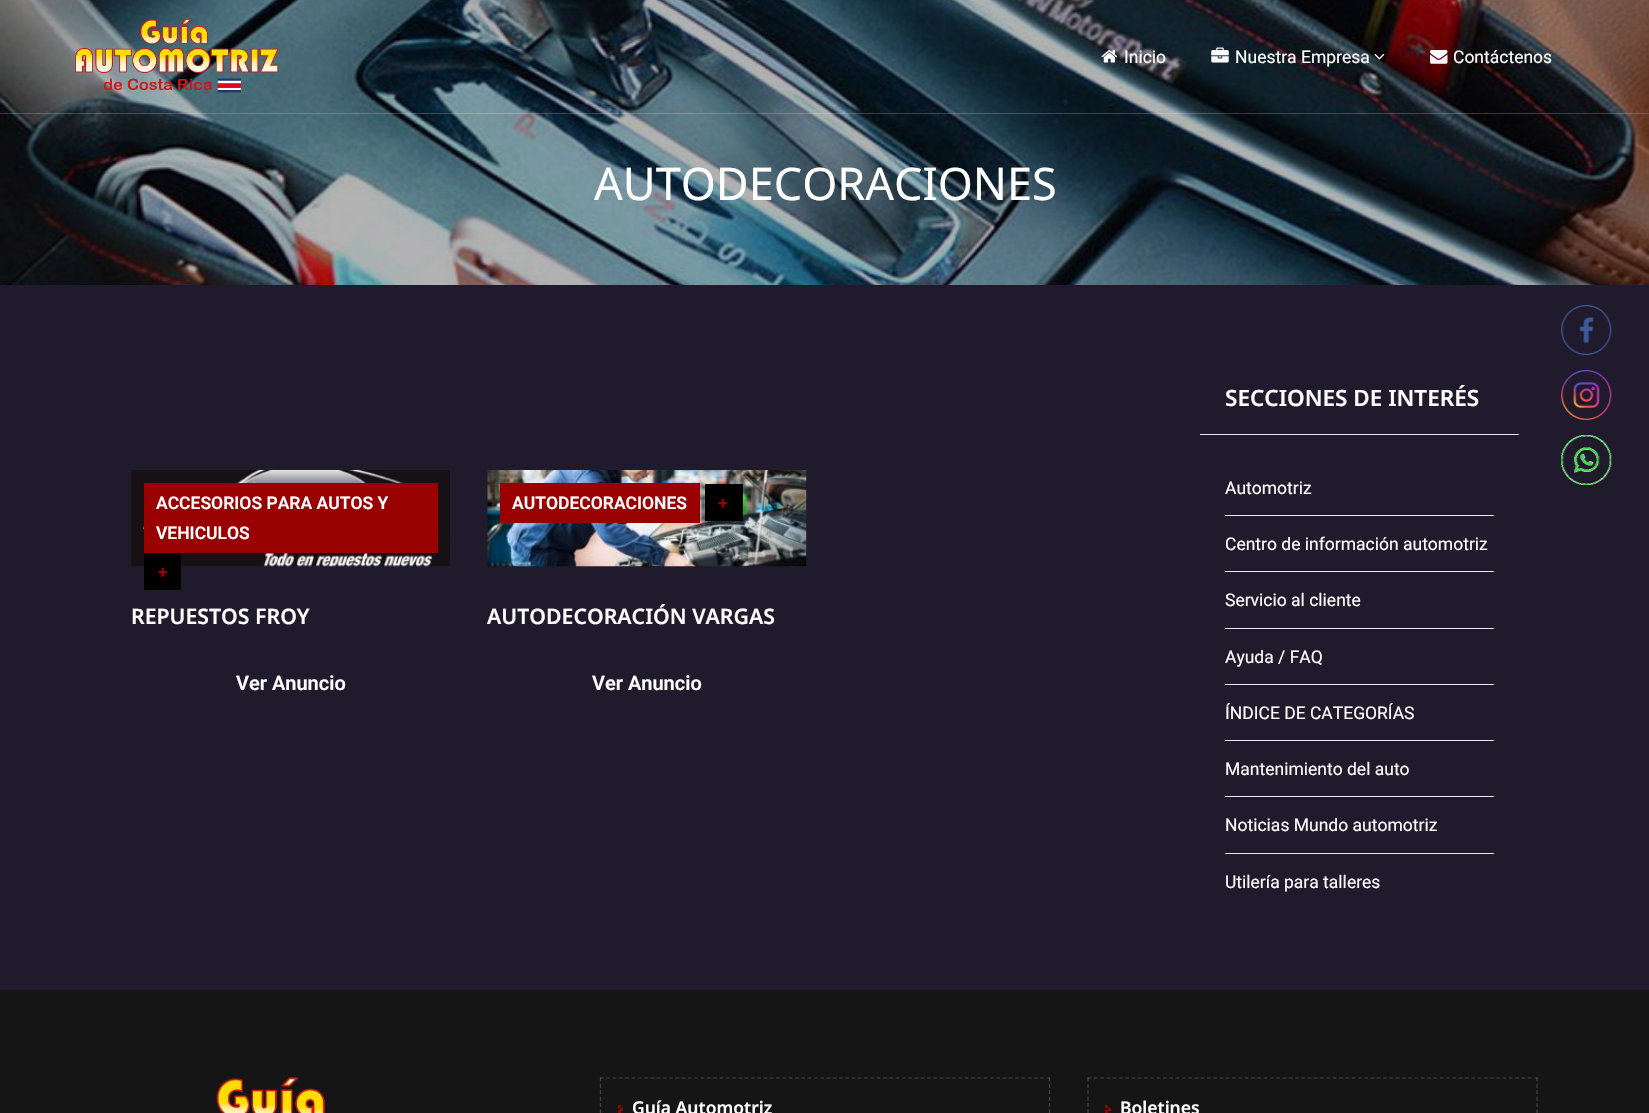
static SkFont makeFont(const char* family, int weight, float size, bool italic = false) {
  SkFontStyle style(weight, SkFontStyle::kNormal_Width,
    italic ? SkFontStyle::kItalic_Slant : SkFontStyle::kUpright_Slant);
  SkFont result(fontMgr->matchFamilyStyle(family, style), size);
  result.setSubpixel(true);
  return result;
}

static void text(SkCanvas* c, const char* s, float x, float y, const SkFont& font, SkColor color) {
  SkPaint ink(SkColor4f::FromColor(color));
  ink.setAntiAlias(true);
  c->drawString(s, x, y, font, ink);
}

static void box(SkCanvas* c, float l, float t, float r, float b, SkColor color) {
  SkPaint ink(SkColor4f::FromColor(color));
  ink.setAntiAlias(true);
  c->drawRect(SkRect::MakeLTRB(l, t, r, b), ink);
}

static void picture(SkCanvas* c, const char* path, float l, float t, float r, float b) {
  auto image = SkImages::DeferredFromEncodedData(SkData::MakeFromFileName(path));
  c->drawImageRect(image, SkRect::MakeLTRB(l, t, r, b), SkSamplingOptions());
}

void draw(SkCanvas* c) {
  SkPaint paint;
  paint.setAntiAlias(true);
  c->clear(0xff1f1b2d);
  picture(c, "img_06.png", 0, 0, 1649, 285);
  box(c, 0, 113, 1649, 114, 0x33ffffff);
  picture(c, "img_01.png", 75, 18, 279, 93);
  picture(c, "img_02.png", 1101, 50, 1118, 63);
  SkFont face1 = makeFont("Roboto", 400, 17.5f);
  text(c, "Inicio", 1124, 63, face1, 0xffffffff);
  picture(c, "img_03.png", 1211, 47, 1229, 63);
  text(c, "Nuestra Empresa", 1235, 63, face1, 0xffffffff);
  picture(c, "img_04.png", 1374, 53, 1385, 60);
  picture(c, "img_05.png", 1430, 50, 1448, 64);
  text(c, "Contáctenos", 1453, 63, face1, 0xffffffff);
  SkFont face2 = makeFont("Noto Sans", 400, 45);
  text(c, "AUTODECORACIONES", 594, 200, face2, 0xffffffff);
  picture(c, "img_07.png", 131, 470, 450, 567);
  box(c, 144, 483, 438, 553, 0xff990000);
  SkFont face3 = makeFont("Roboto", 600, 17.5f);
  text(c, "ACCESORIOS PARA AUTOS Y", 156, 509, face3, 0xffffffff);
  text(c, "VEHICULOS", 156, 539, face3, 0xffffffff);
  box(c, 144, 553, 181, 590, 0xff000000);
  text(c, "+", 158, 578, face3, 0xff990000);
  SkFont face4 = makeFont("Noto Sans", 600, 21.25f);
  text(c, "REPUESTOS FROY", 131, 624, face4, 0xffffffff);
  SkFont face5 = makeFont("Roboto", 600, 20);
  text(c, "Ver Anuncio", 236, 690, face5, 0xffffffff);
  picture(c, "img_08.png", 487, 470, 807, 567);
  box(c, 500, 483, 700, 523, 0xff990000);
  text(c, "AUTODECORACIONES", 512, 509, face3, 0xffffffff);
  box(c, 705, 484, 743, 521, 0xff000000);
  text(c, "+", 718, 509, face3, 0xff990000);
  text(c, "AUTODECORACIÓN VARGAS", 487, 624, face4, 0xffffffff);
  text(c, "Ver Anuncio", 592, 690, face5, 0xffffffff);
  box(c, 1200, 434, 1519, 435, 0xffe9ebee);
  SkFont face6 = makeFont("Noto Sans", 600, 22.5f);
  text(c, "SECCIONES DE INTERÉS", 1225, 406, face6, 0xffffffff);
  box(c, 1225, 515, 1494, 516, 0xffe9ecef);
  text(c, "Automotriz", 1225, 494, face1, 0xffffffff);
  box(c, 1225, 571, 1494, 572, 0xffe9ecef);
  text(c, "Centro de información automotriz", 1225, 550, face1, 0xffffffff);
  box(c, 1225, 628, 1494, 629, 0xffe9ecef);
  text(c, "Servicio al cliente", 1225, 606, face1, 0xffffffff);
  box(c, 1225, 684, 1494, 685, 0xffe9ecef);
  text(c, "Ayuda / FAQ", 1225, 663, face1, 0xffffffff);
  box(c, 1225, 740, 1494, 741, 0xffe9ecef);
  text(c, "ÍNDICE DE CATEGORÍAS", 1225, 719, face1, 0xffffffff);
  box(c, 1225, 796, 1494, 797, 0xffe9ecef);
  text(c, "Mantenimiento del auto", 1225, 775, face1, 0xffffffff);
  box(c, 1225, 853, 1494, 854, 0xffe9ecef);
  text(c, "Noticias Mundo automotriz", 1225, 831, face1, 0xffffffff);
  text(c, "Utilería para talleres", 1225, 888, face1, 0xffffffff);
  box(c, 0, 990, 1649, 1113, 0xff151516);
  picture(c, "img_09.png", 216, 1077, 326, 1113);
  paint.setStyle(SkPaint::kStroke_Style);
  paint.setStrokeWidth(1.2f);
  paint.setColor(0xff444445);
  paint.setPathEffect(SkDashPathEffect::Make({{3.75f, 2.54f}}, 0));
  c->drawPath(SkPathBuilder().moveTo(600, 1078).lineTo(1050, 1078).detach(), paint);
  paint.setPathEffect(nullptr);
  paint.setColor(0x33ffffff);
  paint.setPathEffect(SkDashPathEffect::Make({{3.75f, 2.64f}}, 0));
  c->drawPath(SkPathBuilder().moveTo(1049.5f, 1077.5f).lineTo(1049.5f, 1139).detach(), paint);
  paint.setPathEffect(nullptr);
  paint.setPathEffect(SkDashPathEffect::Make({{3.75f, 2.64f}}, 0));
  c->drawPath(SkPathBuilder().moveTo(600.5f, 1077.5f).lineTo(600.5f, 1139).detach(), paint);
  paint.setPathEffect(nullptr);
  paint.setStyle(SkPaint::kFill_Style);
  paint.setColor(0xff990000);
  c->drawPath(SkPathBuilder().moveTo(618, 1105).lineTo(618, 1108).lineTo(620, 1108).lineTo(620, 1107.5f).lineTo(621, 1107.5f).lineTo(621, 1105).close().detach(), paint);
  box(c, 618, 1110, 621, 1113, 0xff990000);
  box(c, 620, 1108, 623, 1111, 0xff990000);
  SkFont face7 = makeFont("Noto Sans", 600, 17.5f);
  text(c, "Guía Automotriz", 632, 1114, face7, 0xffffffff);
  paint.setStyle(SkPaint::kStroke_Style);
  paint.setColor(0xff444445);
  paint.setPathEffect(SkDashPathEffect::Make({{3.75f, 2.54f}}, 0));
  c->drawPath(SkPathBuilder().moveTo(1087.5f, 1078).lineTo(1537.5f, 1078).detach(), paint);
  paint.setPathEffect(nullptr);
  paint.setColor(0x33ffffff);
  paint.setPathEffect(SkDashPathEffect::Make({{3.75f, 2.64f}}, 0));
  c->drawPath(SkPathBuilder().moveTo(1537, 1077.5f).lineTo(1537, 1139).detach(), paint);
  paint.setPathEffect(nullptr);
  paint.setPathEffect(SkDashPathEffect::Make({{3.75f, 2.64f}}, 0));
  c->drawPath(SkPathBuilder().moveTo(1088, 1077.5f).lineTo(1088, 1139).detach(), paint);
  paint.setPathEffect(nullptr);
  box(c, 1105, 1105, 1108, 1108, 0xff990000);
  box(c, 1105, 1110, 1108, 1113, 0xff990000);
  box(c, 1108, 1108, 1111, 1111, 0xff990000);
  text(c, "Boletines", 1120, 1114, face7, 0xffffffff);
  picture(c, "img_10.png", 1561, 305, 1612, 355);
  picture(c, "img_11.png", 1561, 370, 1612, 420);
  picture(c, "img_12.png", 1561, 435, 1612, 485);
}
